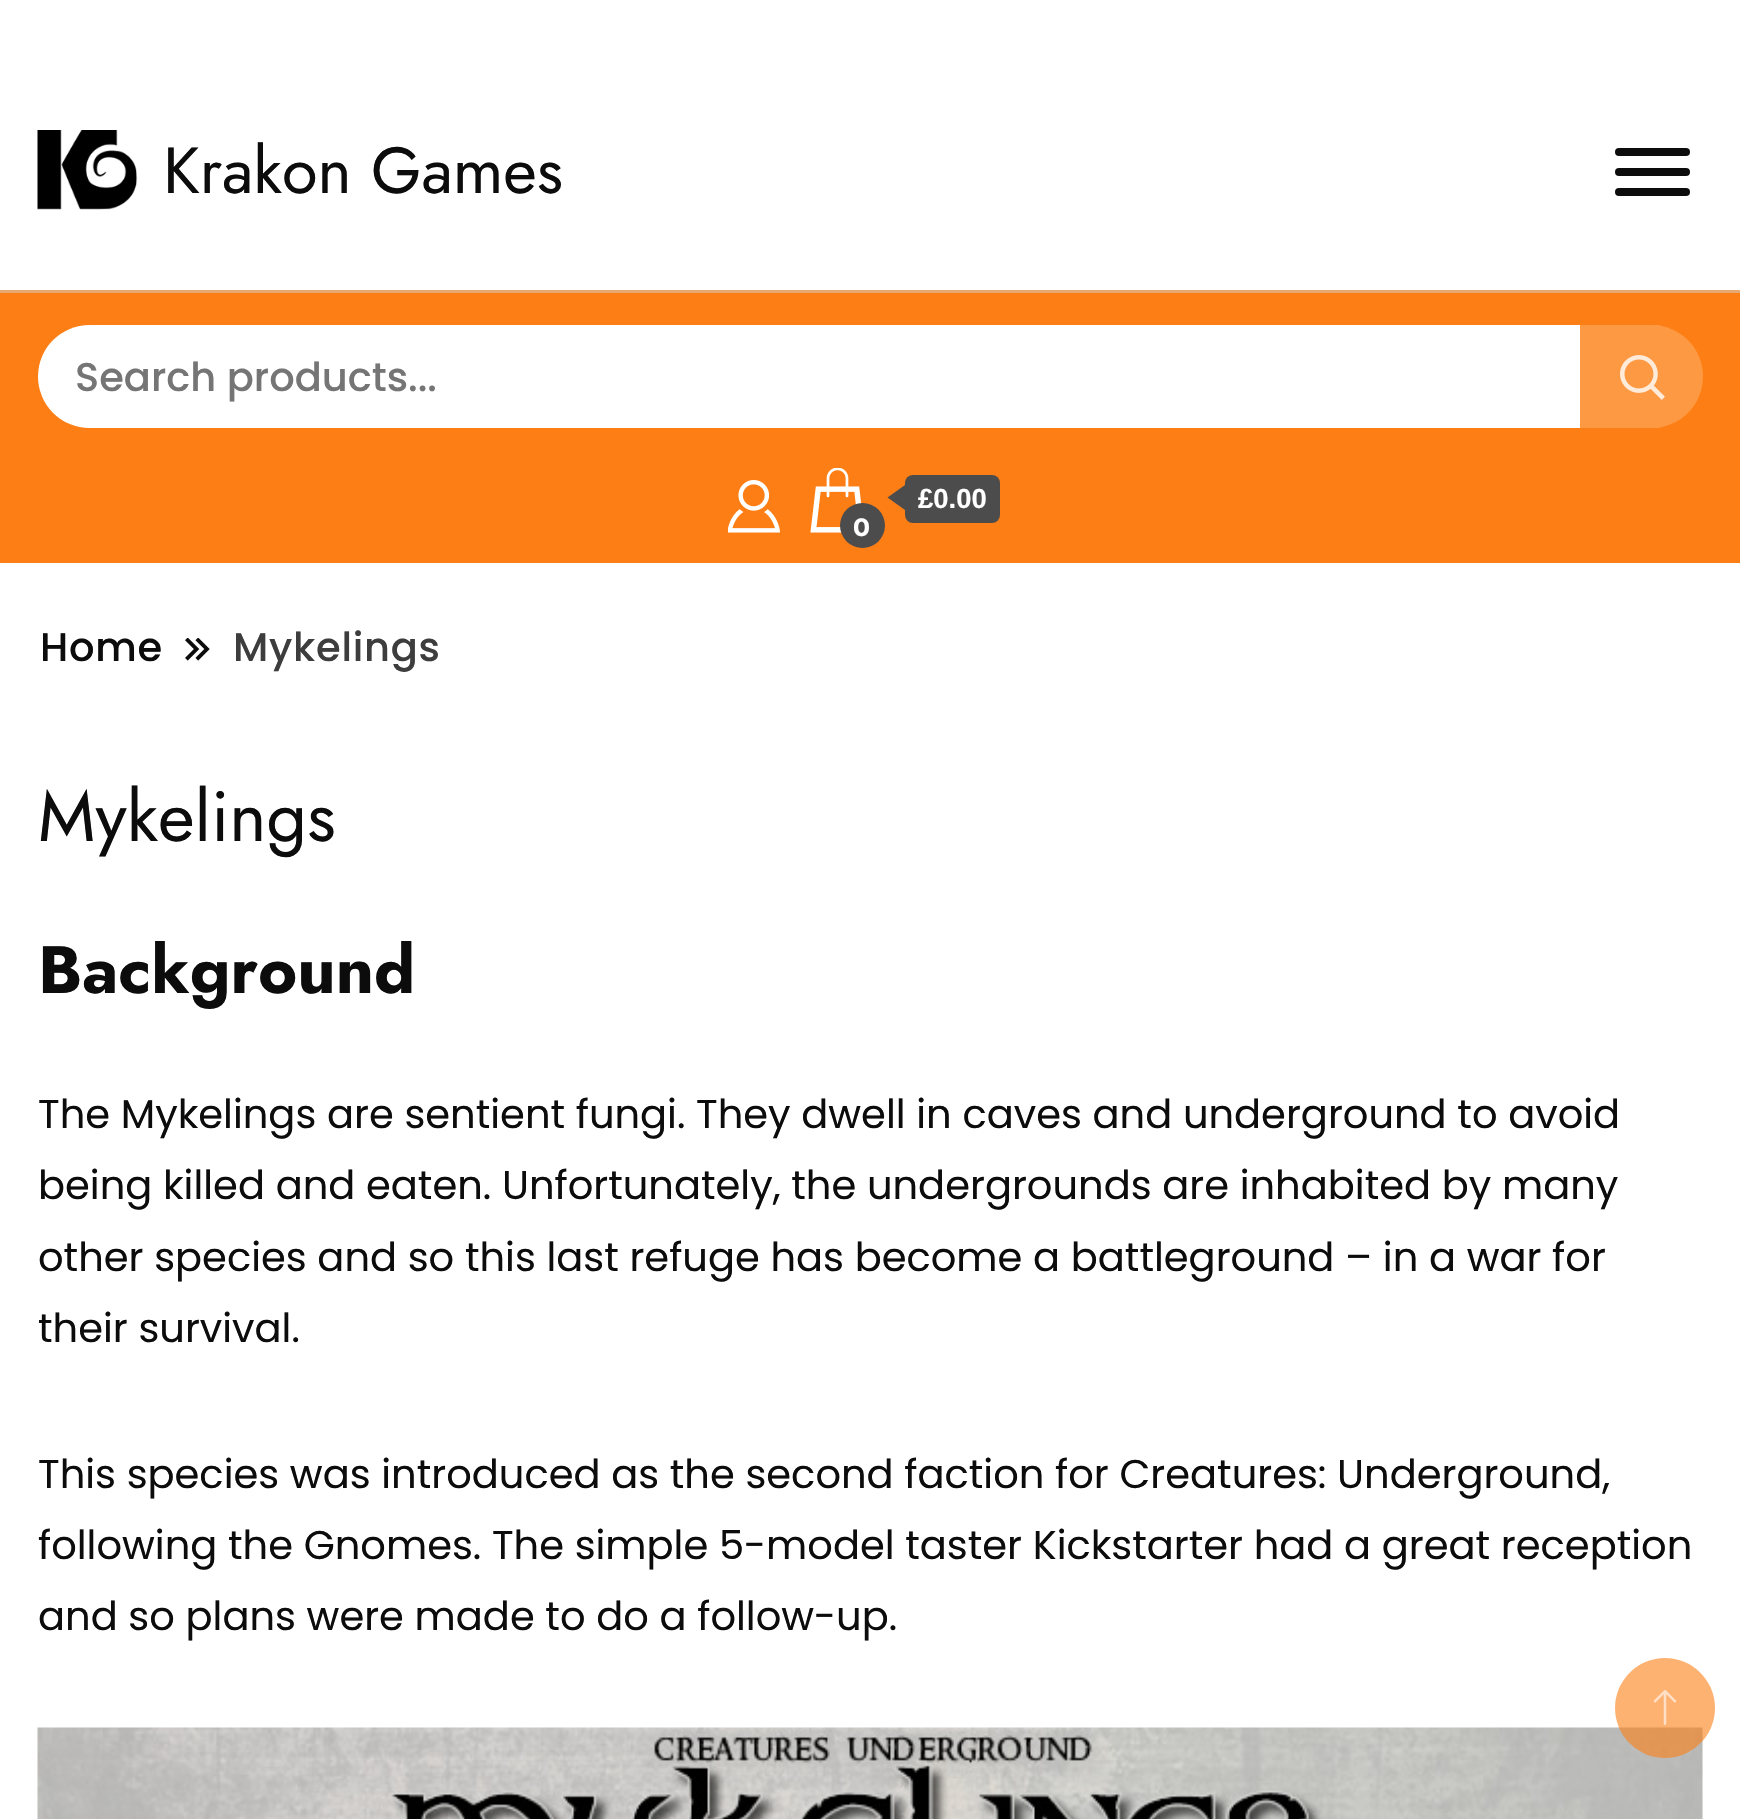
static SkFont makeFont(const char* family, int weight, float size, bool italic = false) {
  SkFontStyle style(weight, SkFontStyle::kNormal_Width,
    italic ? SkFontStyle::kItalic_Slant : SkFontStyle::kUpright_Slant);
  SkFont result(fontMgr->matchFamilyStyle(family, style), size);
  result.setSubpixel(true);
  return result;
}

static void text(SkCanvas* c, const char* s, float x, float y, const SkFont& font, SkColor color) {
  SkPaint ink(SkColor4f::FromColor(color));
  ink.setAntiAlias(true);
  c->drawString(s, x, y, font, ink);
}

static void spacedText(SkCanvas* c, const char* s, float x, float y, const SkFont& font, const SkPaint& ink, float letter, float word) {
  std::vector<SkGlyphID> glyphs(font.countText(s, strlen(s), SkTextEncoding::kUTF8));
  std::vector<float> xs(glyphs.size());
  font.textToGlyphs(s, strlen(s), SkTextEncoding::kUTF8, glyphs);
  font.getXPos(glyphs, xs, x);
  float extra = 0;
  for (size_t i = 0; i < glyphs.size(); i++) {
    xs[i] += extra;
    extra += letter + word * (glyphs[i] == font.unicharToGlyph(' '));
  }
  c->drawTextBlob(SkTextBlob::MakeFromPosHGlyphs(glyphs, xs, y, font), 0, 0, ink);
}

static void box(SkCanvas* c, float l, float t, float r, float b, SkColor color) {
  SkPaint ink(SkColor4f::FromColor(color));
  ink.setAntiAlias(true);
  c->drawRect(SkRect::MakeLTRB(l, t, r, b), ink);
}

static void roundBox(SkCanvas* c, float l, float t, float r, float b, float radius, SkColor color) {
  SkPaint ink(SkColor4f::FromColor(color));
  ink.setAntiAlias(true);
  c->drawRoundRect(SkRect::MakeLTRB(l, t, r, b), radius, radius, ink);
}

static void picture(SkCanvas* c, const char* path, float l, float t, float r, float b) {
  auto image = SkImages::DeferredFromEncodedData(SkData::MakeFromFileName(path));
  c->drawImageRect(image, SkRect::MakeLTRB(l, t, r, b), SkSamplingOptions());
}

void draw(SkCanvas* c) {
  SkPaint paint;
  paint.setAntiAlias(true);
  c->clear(0xffffffff);
  picture(c, "img_01.png", 37, 130, 138, 210);
  SkFont face1 = makeFont("Jost", 400, 65);
  text(c, "Krakon Games", 163, 193, face1, 0xff0c0c0c);
  roundBox(c, 1615, 148, 1690, 156, 4, 0xff0c0c0c);
  roundBox(c, 1615, 168, 1690, 176, 4, 0xff0c0c0c);
  roundBox(c, 1615, 188, 1690, 196, 4, 0xff0c0c0c);
  box(c, 0, 293, 1740, 563, 0xfffd7e14);
  box(c, 0, 290, 1740, 293, 0xffe7a874);
  roundBox(c, 38, 325, 1703, 428, 51.5f, 0xffffffff);
  SkFont face2 = makeFont("Poppins", 500, 40);
  text(c, "Search products...", 75, 391, face2, 0xff757575);
  paint.setColor(0xccfd7e14);
  c->drawPath(SkPathBuilder().moveTo(1580, 325).lineTo(1653.5f, 325).cubicTo(1682, 325, 1705, 348, 1705, 376.5f).cubicTo(1705, 405, 1682, 428, 1653.5f, 428).lineTo(1580, 428).close().detach(), paint);
  picture(c, "img_02.png", 1620, 355, 1665, 400);
  picture(c, "img_03.png", 728, 480, 780, 533);
  picture(c, "img_04.png", 810, 468, 862, 533);
  roundBox(c, 905, 475, 1000, 523, 8, 0xff4c4c4c);
  paint.setColor(0xff4c4c4c);
  c->drawPath(SkPathBuilder().moveTo(905, 485).lineTo(905, 510).lineTo(887.5f, 497.5f).close().detach(), paint);
  SkFont face3 = makeFont("Liberation Sans", 700, 27.5f);
  text(c, "£0.00", 918, 508, face3, 0xffffffff);
  c->drawCircle(862.5f, 525.5f, 22.5f, paint);
  SkFont face4 = makeFont("Montserrat", 700, 25);
  text(c, "0", 853, 536, face4, 0xffffffff);
  paint.setColor(0xff0c0c0c);
  spacedText(c, "Home", 40, 661, face2, paint, 0.75f, 0);
  picture(c, "img_05.png", 185, 638, 210, 661);
  paint.setColor(0xff3d3d3d);
  spacedText(c, "Mykelings", 233, 661, face2, paint, 0.75f, 0);
  SkFont face5 = makeFont("Jost", 400, 71);
  text(c, "Mykelings", 38, 841, face5, 0xff0c0c0c);
  SkFont face6 = makeFont("Jost", 700, 66.75f);
  text(c, "Background", 38, 993, face6, 0xff0c0c0c);
  SkFont face7 = makeFont("Poppins", 400, 40);
  text(c, "The Mykelings are sentient fungi. They dwell in caves and underground to avoid", 38, 1128, face7, 0xff0c0c0c);
  text(c, "being killed and eaten. Unfortunately, the undergrounds are inhabited by many", 38, 1199, face7, 0xff0c0c0c);
  text(c, "other species and so this last refuge has become a battleground – in a war for", 38, 1271, face7, 0xff0c0c0c);
  text(c, "their survival.", 38, 1342, face7, 0xff0c0c0c);
  text(c, "This species was introduced as the second faction for Creatures: Underground,", 38, 1488, face7, 0xff0c0c0c);
  text(c, "following the Gnomes. The simple 5-model taster Kickstarter had a great reception", 38, 1559, face7, 0xff0c0c0c);
  text(c, "and so plans were made to do a follow-up.", 38, 1630, face7, 0xff0c0c0c);
  picture(c, "img_06.png", 37, 1727, 1703, 1819);
  paint.setColor(0x99fd7e14);
  c->drawCircle(1665, 1708, 50, paint);
  picture(c, "img_07.png", 1653, 1690, 1677, 1725);
}
